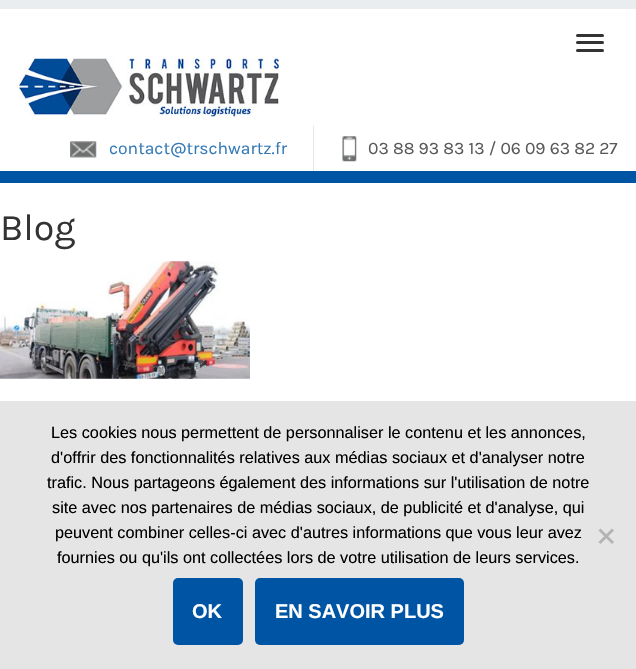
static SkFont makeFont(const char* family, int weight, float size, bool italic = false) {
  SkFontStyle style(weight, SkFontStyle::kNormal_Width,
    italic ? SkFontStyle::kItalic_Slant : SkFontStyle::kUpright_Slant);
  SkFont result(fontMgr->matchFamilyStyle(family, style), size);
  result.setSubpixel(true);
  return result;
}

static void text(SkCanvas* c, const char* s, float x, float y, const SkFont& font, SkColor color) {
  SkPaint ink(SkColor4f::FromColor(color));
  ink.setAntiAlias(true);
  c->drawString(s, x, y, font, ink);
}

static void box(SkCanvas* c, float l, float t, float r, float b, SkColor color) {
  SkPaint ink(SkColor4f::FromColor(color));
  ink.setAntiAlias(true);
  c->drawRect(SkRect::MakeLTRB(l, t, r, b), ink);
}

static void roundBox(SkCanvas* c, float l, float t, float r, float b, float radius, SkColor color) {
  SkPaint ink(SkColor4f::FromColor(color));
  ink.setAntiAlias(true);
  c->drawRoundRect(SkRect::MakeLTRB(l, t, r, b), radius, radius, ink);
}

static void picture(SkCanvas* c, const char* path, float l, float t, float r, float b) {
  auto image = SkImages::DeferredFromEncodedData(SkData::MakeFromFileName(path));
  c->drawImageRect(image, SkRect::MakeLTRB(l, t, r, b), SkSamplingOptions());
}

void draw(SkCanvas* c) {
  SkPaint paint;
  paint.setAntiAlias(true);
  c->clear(0xffffffff);
  box(c, 0, 171, 636, 183, 0xff0054a4);
  box(c, 0, 0, 636, 9, 0xffeaedf0);
  roundBox(c, 576, 34, 604, 37, 1.5f, 0xff333333);
  roundBox(c, 576, 41, 604, 44, 1.5f, 0xff333333);
  roundBox(c, 576, 49, 604, 52, 1.5f, 0xff333333);
  picture(c, "img_01.png", 18, 58, 279, 117);
  picture(c, "img_02.png", 70, 141, 97, 158);
  box(c, 313, 126, 314, 171, 0xffe5e9ed);
  SkFont face1 = makeFont("Karla", 400, 17.5f);
  text(c, "contact@trschwartz.fr", 109, 154, face1, 0xff337ab7);
  picture(c, "img_03.png", 342, 136, 357, 162);
  text(c, "03 88 93 83 13 / 06 09 63 82 27", 368, 154, face1, 0xff58595b);
  SkFont face2 = makeFont("Karla", 400, 37.5f);
  text(c, "Blog", 0, 240, face2, 0xff333333);
  picture(c, "img_04.png", 0, 261, 250, 379);
  box(c, 0, 401, 636, 669, 0xffe5e5e5);
  SkFont face3 = makeFont("Liberation Sans", 400, 16.25f);
  text(c, "Les cookies nous permettent de personnaliser le contenu et les annonces,", 51, 438, face3, 0xff000000);
  text(c, "d'offrir des fonctionnalités relatives aux médias sociaux et d'analyser notre", 51, 463, face3, 0xff000000);
  text(c, "trafic. Nous partageons également des informations sur l'utilisation de notre", 47, 488, face3, 0xff000000);
  text(c, "site avec nos partenaires de médias sociaux, de publicité et d'analyse, qui", 52, 513, face3, 0xff000000);
  text(c, "peuvent combiner celles-ci avec d'autres informations que vous leur avez", 55, 538, face3, 0xff000000);
  text(c, "fournies ou qu'ils ont collectées lors de votre utilisation de leurs services.", 57, 563, face3, 0xff000000);
  paint.setColor(0xffb3b3b3);
  c->drawPath(SkPathBuilder().moveTo(612, 528.5f).lineTo(614, 530.5f).lineTo(600.5f, 544).lineTo(598.5f, 542).close().detach(), paint);
  c->drawPath(SkPathBuilder().moveTo(598.5f, 530.5f).lineTo(600.5f, 528.5f).lineTo(614, 542).lineTo(612, 544).close().detach(), paint);
  roundBox(c, 173, 578, 243, 645, 5, 0xff0054a4);
  SkFont face4 = makeFont("Liberation Sans", 700, 20);
  text(c, "OK", 192, 618, face4, 0xffffffff);
  roundBox(c, 255, 578, 464, 645, 5, 0xff0054a4);
  text(c, "EN SAVOIR PLUS", 275, 618, face4, 0xffffffff);
}
